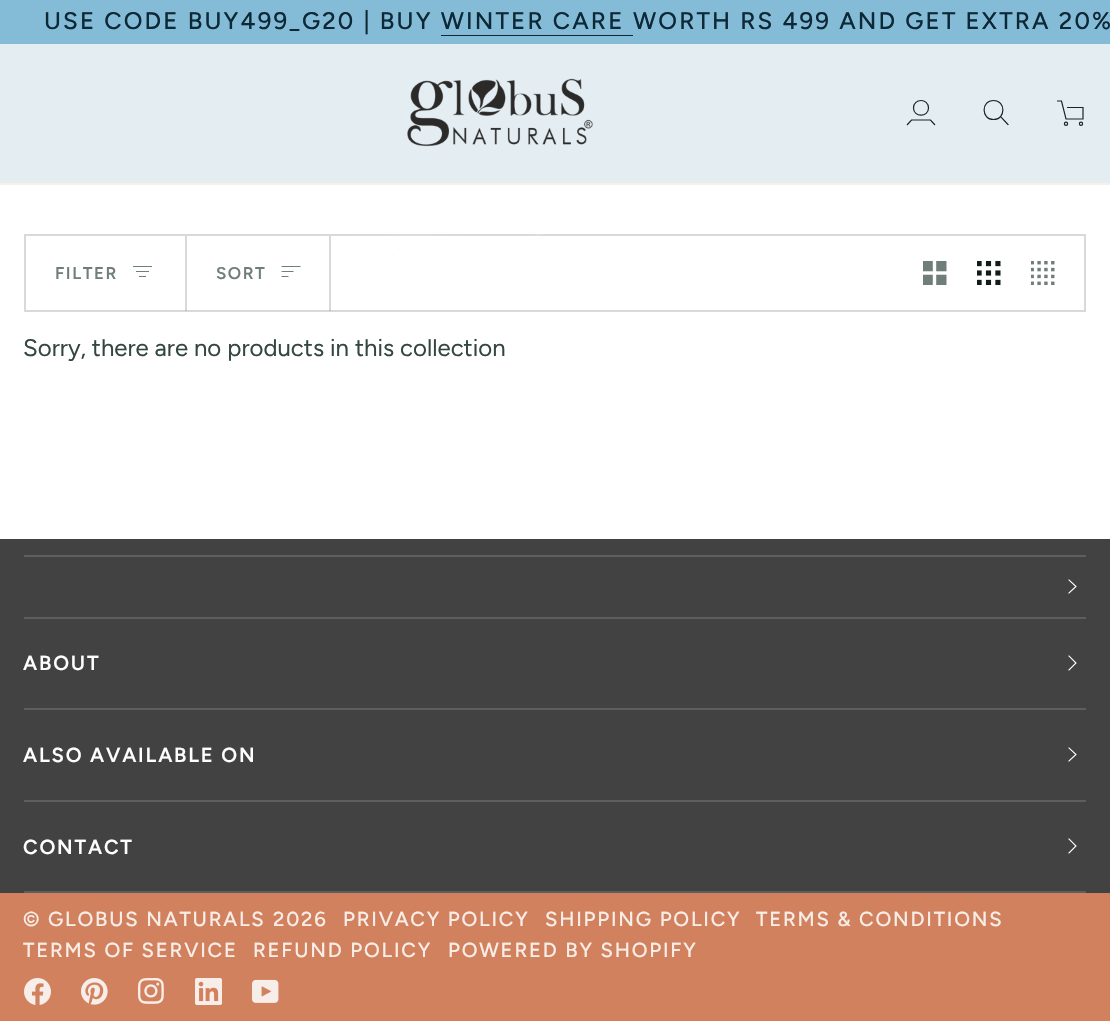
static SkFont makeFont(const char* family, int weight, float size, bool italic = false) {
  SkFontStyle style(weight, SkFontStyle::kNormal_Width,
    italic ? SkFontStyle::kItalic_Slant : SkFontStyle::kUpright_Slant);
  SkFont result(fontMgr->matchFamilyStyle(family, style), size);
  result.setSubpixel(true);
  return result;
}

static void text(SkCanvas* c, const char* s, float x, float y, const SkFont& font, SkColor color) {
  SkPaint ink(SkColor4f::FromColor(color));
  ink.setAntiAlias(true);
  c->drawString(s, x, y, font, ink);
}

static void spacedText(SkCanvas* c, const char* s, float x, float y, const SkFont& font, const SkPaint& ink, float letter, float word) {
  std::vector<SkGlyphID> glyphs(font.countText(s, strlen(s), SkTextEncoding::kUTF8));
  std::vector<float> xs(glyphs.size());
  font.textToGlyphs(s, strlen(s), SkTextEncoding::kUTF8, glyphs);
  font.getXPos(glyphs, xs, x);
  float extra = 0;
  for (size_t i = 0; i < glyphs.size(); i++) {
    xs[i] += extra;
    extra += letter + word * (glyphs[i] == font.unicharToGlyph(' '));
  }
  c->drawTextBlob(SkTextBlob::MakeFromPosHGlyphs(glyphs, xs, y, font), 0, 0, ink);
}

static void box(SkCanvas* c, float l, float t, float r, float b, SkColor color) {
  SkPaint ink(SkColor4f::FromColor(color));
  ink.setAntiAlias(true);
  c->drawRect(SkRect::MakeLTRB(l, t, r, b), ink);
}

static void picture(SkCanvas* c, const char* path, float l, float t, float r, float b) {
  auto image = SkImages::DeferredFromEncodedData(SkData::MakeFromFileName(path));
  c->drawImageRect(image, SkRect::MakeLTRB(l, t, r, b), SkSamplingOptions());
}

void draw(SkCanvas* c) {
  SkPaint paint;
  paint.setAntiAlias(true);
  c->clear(0xffffffff);
  box(c, 0, 0, 1110, 44, 0xff84bbd7);
  SkFont face1 = makeFont("Figtree", 500, 24);
  paint.setColor(0xff0d2836);
  spacedText(c, "USE CODE BUY499_G20 | BUY WINTER CARE", 44, 29, face1, paint, 2.15f, 0);
  spacedText(c, "WORTH RS 499 AND GET EXTRA 20%", 633, 29, face1, paint, 2.15f, 0);
  c->drawPath(SkPathBuilder().moveTo(441, 35).lineTo(441, 37).lineTo(441, 36).lineTo(633, 36).lineTo(633, 35).close().detach(), paint);
  box(c, 0, 44, 1110, 183, 0xffe3edf2);
  box(c, 0, 183, 1110, 185, 0xfff8f0e7);
  picture(c, "img_01.png", 407, 78, 593, 147);
  paint.setStyle(SkPaint::kStroke_Style);
  paint.setStrokeWidth(1.2f);
  paint.setColor(0xff1d2523);
  c->drawPath(SkPathBuilder().moveTo(907, 125).lineTo(911.5f, 120).lineTo(930.5f, 120).lineTo(935, 125).moveTo(928.5f, 108).cubicTo(928.5f, 117.5f, 913.5f, 117.5f, 913.5f, 108).cubicTo(913.5f, 98, 928.5f, 98, 928.5f, 108).close().detach(), paint);
  paint.setStrokeCap(SkPaint::kSquare_Cap);
  c->drawPath(SkPathBuilder().moveTo(993.5f, 119.5f).cubicTo(1006, 119.5f, 1006, 100.5f, 993.5f, 100.5f).cubicTo(981, 100.5f, 981, 119.5f, 993.5f, 119.5f).close().moveTo(1008, 124.5f).lineTo(1001, 117).detach(), paint);
  paint.setStrokeCap(SkPaint::kButt_Cap);
  c->drawPath(SkPathBuilder().moveTo(1057, 101).lineTo(1061.5f, 101).lineTo(1066, 119).lineTo(1083, 119).lineTo(1083, 107.5f).lineTo(1067, 107.5f).detach(), paint);
  c->drawCircle(1066, 123.8f, 1.6f, paint);
  c->drawCircle(1081, 123.8f, 1.6f, paint);
  paint.setStrokeWidth(2);
  paint.setColor(0xffd6dad9);
  c->drawRect(SkRect::MakeLTRB(25, 235, 1085, 311), paint);
  box(c, 329, 236, 331, 311, 0x33334641);
  SkFont face2 = makeFont("Figtree", 600, 17);
  paint.setStyle(SkPaint::kFill_Style);
  paint.setColor(0xff707e7a);
  spacedText(c, "SORT", 216, 279, face2, paint, 1.5f, 0);
  paint.setStyle(SkPaint::kStroke_Style);
  paint.setStrokeWidth(1);
  paint.setStrokeCap(SkPaint::kSquare_Cap);
  c->drawPath(SkPathBuilder().moveTo(300, 266.5f).lineTo(282, 266.5f).moveTo(293, 271.5f).lineTo(282, 271.5f).moveTo(288, 276.5f).lineTo(282, 276.5f).detach(), paint);
  picture(c, "img_02.png", 263, 234, 542, 272);
  box(c, 185, 236, 187, 311, 0x33334641);
  paint.setStyle(SkPaint::kFill_Style);
  spacedText(c, "FILTER", 55, 279, face2, paint, 1.5f, 0);
  paint.setStyle(SkPaint::kStroke_Style);
  c->drawPath(SkPathBuilder().moveTo(151.5f, 266.5f).lineTo(133.5f, 266.5f).moveTo(148.5f, 271.5f).lineTo(136.5f, 271.5f).moveTo(145.5f, 276.5f).lineTo(139.5f, 276.5f).detach(), paint);
  picture(c, "img_03.png", 923, 261, 947, 285);
  picture(c, "img_04.png", 977, 261, 1001, 285);
  picture(c, "img_05.png", 1031, 261, 1055, 285);
  SkFont face3 = makeFont("Figtree", 400, 24);
  text(c, "Sorry, there are no products in this collection", 23, 356, face3, 0xff334641);
  box(c, 0, 539, 1110, 893, 0xff424242);
  box(c, 24, 555, 1086, 557, 0xff5e5e5e);
  box(c, 24, 617, 1086, 619, 0xff5e5e5e);
  paint.setStrokeWidth(1.1f);
  paint.setColor(0xffffffff);
  c->drawPath(SkPathBuilder().moveTo(1069, 593).lineTo(1076, 586.5f).lineTo(1069, 580).detach(), paint);
  box(c, 24, 708, 1086, 710, 0xff5e5e5e);
  SkFont face4 = makeFont("Figtree", 600, 20.25f);
  paint.setStyle(SkPaint::kFill_Style);
  spacedText(c, "ABOUT", 23, 670, face4, paint, 1.8f, 0);
  paint.setStyle(SkPaint::kStroke_Style);
  c->drawPath(SkPathBuilder().moveTo(1069, 670).lineTo(1076, 663).lineTo(1069, 656).detach(), paint);
  box(c, 24, 800, 1086, 802, 0xff5e5e5e);
  paint.setStyle(SkPaint::kFill_Style);
  spacedText(c, "ALSO AVAILABLE ON", 23, 762, face4, paint, 1.8f, 0);
  paint.setStyle(SkPaint::kStroke_Style);
  c->drawPath(SkPathBuilder().moveTo(1069, 761).lineTo(1076, 754.5f).lineTo(1069, 748).detach(), paint);
  box(c, 24, 891, 1086, 893, 0xff5e5e5e);
  paint.setStyle(SkPaint::kFill_Style);
  spacedText(c, "CONTACT", 23, 854, face4, paint, 1.8f, 0);
  paint.setStyle(SkPaint::kStroke_Style);
  c->drawPath(SkPathBuilder().moveTo(1069, 853).lineTo(1076, 846).lineTo(1069, 839).detach(), paint);
  box(c, 0, 893, 1110, 1021, 0xffd2815f);
  SkFont face5 = makeFont("Figtree", 500, 20.25f);
  paint.setStyle(SkPaint::kFill_Style);
  paint.setColor(0xfff8eee8);
  spacedText(c, "© GLOBUS NATURALS", 23, 926, face5, paint, 1.8f, 0);
  spacedText(c, "2026", 273, 926, face5, paint, 1.8f, 0);
  spacedText(c, "PRIVACY POLICY", 343, 926, face5, paint, 1.8f, 0);
  spacedText(c, "SHIPPING POLICY", 545, 926, face5, paint, 1.8f, 0);
  spacedText(c, "TERMS & CONDITIONS", 756, 926, face5, paint, 1.8f, 0);
  spacedText(c, "TERMS OF SERVICE", 23, 957, face5, paint, 1.8f, 0);
  spacedText(c, "REFUND POLICY", 253, 957, face5, paint, 1.8f, 0);
  spacedText(c, "POWERED BY SHOPIFY", 448, 957, face5, paint, 1.8f, 0);
  picture(c, "img_06.png", 24, 978, 51, 1005);
  picture(c, "img_07.png", 81, 978, 108, 1005);
  picture(c, "img_08.png", 138, 978, 164, 1004);
  picture(c, "img_09.png", 195, 978, 222, 1005);
  picture(c, "img_10.png", 252, 979, 279, 1003);
}
